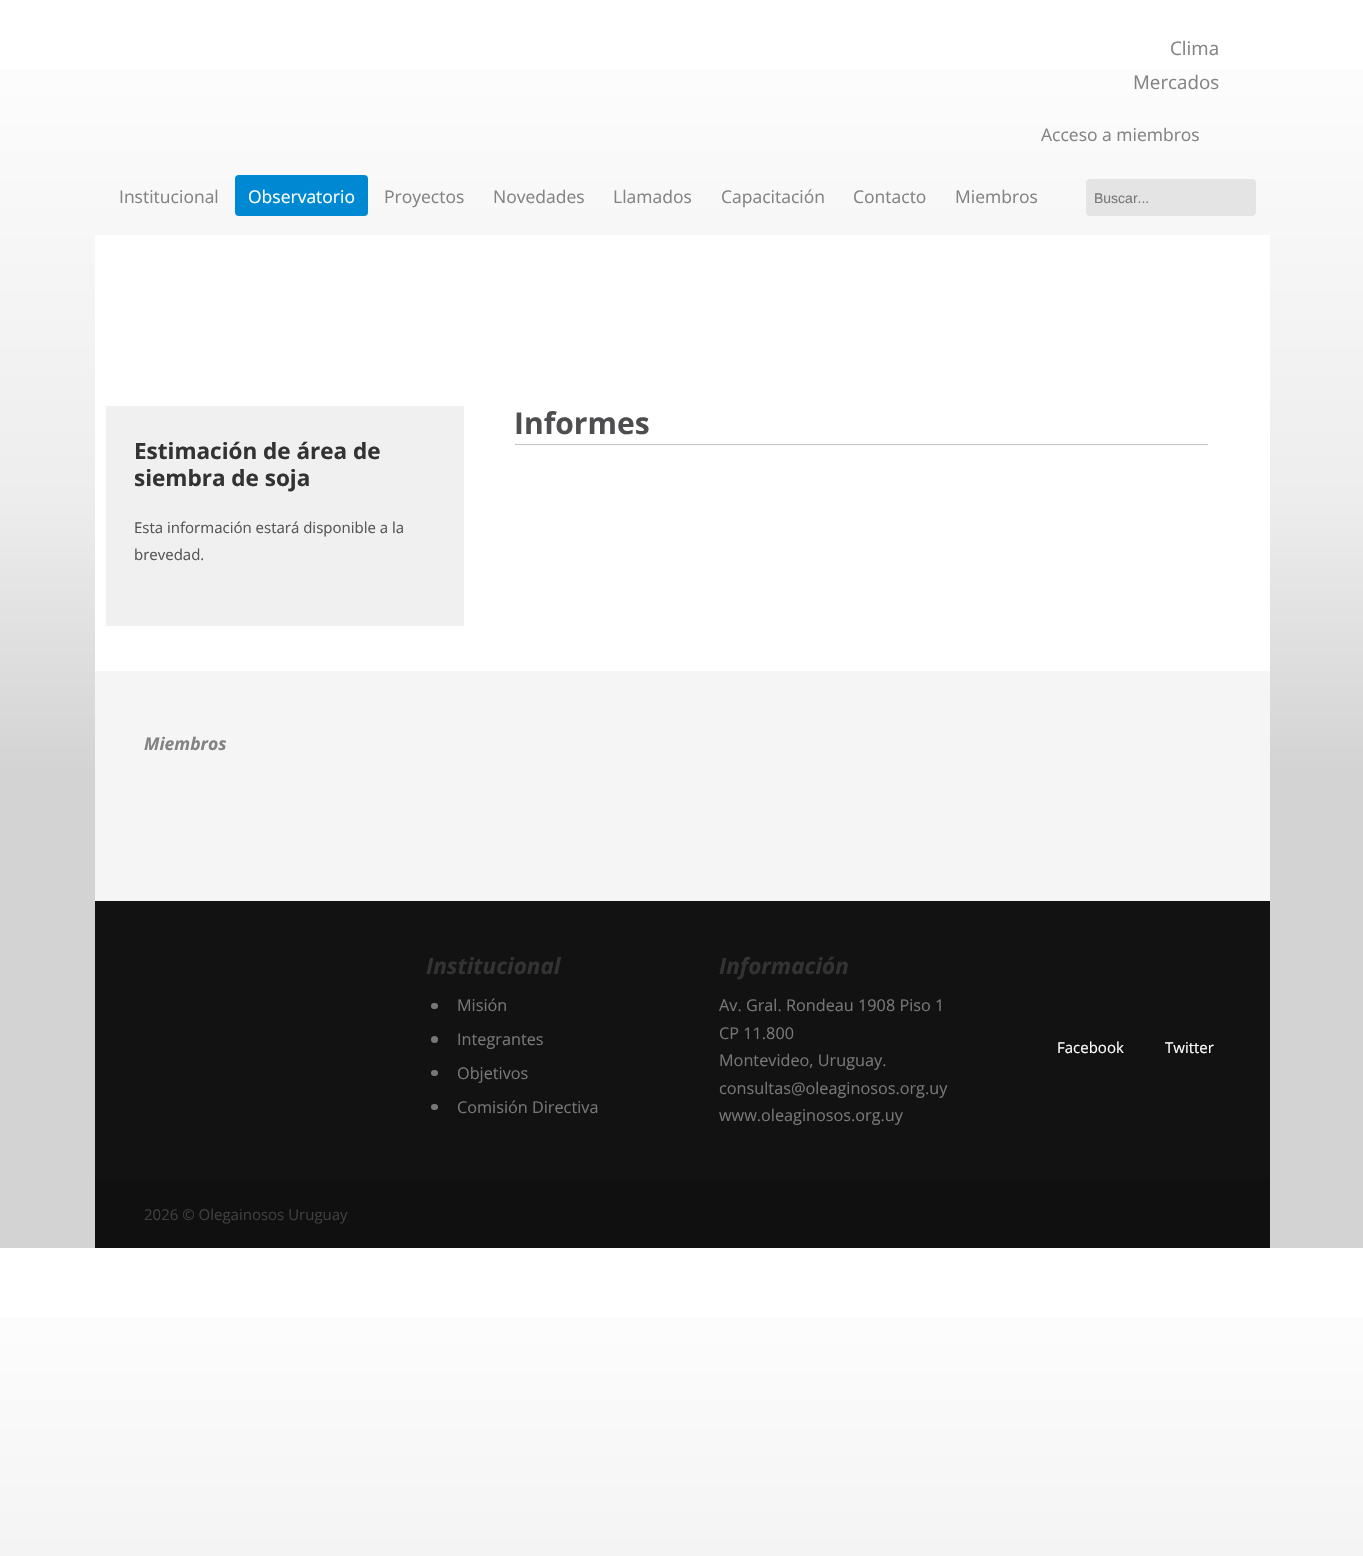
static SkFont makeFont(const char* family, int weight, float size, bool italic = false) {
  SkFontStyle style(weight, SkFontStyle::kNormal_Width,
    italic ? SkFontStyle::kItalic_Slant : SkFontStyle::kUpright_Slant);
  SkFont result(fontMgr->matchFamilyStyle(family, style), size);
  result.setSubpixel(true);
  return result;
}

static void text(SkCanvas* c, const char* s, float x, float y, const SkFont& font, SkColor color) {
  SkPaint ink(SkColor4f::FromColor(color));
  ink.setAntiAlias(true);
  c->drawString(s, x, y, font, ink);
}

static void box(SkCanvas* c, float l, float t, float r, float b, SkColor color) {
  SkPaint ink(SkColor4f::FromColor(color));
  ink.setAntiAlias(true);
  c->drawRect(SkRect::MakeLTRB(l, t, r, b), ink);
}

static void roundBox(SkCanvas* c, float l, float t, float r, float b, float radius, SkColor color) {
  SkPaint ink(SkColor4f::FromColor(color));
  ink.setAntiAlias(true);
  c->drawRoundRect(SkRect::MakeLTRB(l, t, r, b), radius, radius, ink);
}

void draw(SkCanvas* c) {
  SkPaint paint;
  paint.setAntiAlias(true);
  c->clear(0xffffffff);
  {
    const SkColor colors[] = {0xffd3d3d3, 0xffd3d3d3, 0xffededed, 0xffffffff};
    const float stops[] = {0, 0.38f, 0.6f, 1};
    const SkPoint ends[] = {{682, 1248}, {682, 0}};
    paint.setShader(SkGradientShader::MakeLinear(ends, colors, stops, 4, SkTileMode::kClamp));
    paint.setAlpha(255);
  }
  c->drawRect(SkRect::MakeLTRB(0, 69, 1363, 1248), paint);
  {
    const SkColor colors[] = {0xffd3d3d3, 0xffd3d3d3, 0xffededed, 0xffffffff};
    const float stops[] = {0, 0.38f, 0.6f, 1};
    const SkPoint ends[] = {{682, 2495}, {682, 1248}};
    paint.setShader(SkGradientShader::MakeLinear(ends, colors, stops, 4, SkTileMode::kClamp));
    paint.setAlpha(255);
  }
  c->drawRect(SkRect::MakeLTRB(0, 1317, 1363, 1556), paint);
  box(c, 95, 235, 1270, 671, 0xffffffff);
  SkFont face1 = makeFont("Open Sans", 400, 18.75f);
  text(c, "Clima", 1170, 55, face1, 0xff838383);
  text(c, "Mercados", 1133, 89, face1, 0xff838383);
  SkFont face2 = makeFont("Open Sans", 400, 17.5f);
  text(c, "Acceso a miembros", 1041, 141, face2, 0xff838383);
  text(c, "Institucional", 119, 203, face2, 0xff838383);
  roundBox(c, 235, 175, 368, 216, 4, 0xff0089d3);
  text(c, "Observatorio", 248, 203, face2, 0xffffffff);
  text(c, "Proyectos", 384, 203, face2, 0xff838383);
  text(c, "Novedades", 493, 203, face2, 0xff838383);
  text(c, "Llamados", 613, 203, face2, 0xff838383);
  text(c, "Capacitación", 721, 203, face2, 0xff838383);
  text(c, "Contacto", 853, 203, face2, 0xff838383);
  text(c, "Miembros", 955, 203, face2, 0xff838383);
  paint.setShader(nullptr);
  paint.setColor(0xffe4e4e4);
  c->drawRoundRect(SkRect::MakeLTRB(1086.5f, 179.5f, 1255.5f, 215.5f), 3.5f, 3.5f, paint);
  paint.setStyle(SkPaint::kStroke_Style);
  paint.setStrokeWidth(1);
  c->drawRoundRect(SkRect::MakeLTRB(1086.5f, 179.5f, 1255.5f, 215.5f), 3.5f, 3.5f, paint);
  SkFont face3 = makeFont("Liberation Sans", 400, 14);
  text(c, "Buscar...", 1094, 203, face3, 0xff777777);
  box(c, 515, 444, 1208, 445, 0xffc5c5c5);
  SkFont face4 = makeFont("Open Sans", 700, 30);
  text(c, "Informes", 514, 434, face4, 0xff4e4e50);
  box(c, 106, 406, 464, 626, 0xfff0f0f0);
  SkFont face5 = makeFont("Open Sans", 700, 22.5f);
  text(c, "Estimación de área de", 134, 459, face5, 0xff333333);
  text(c, "siembra de soja", 134, 486, face5, 0xff333333);
  SkFont face6 = makeFont("Open Sans", 400, 15);
  text(c, "Esta información estará disponible a la", 134, 533, face6, 0xff555555);
  text(c, "brevedad.", 134, 560, face6, 0xff555555);
  box(c, 95, 671, 1270, 901, 0xfff5f5f5);
  SkFont face7 = makeFont("Open Sans", 700, 17.5f, true);
  text(c, "Miembros", 144, 750, face7, 0xff838383);
  box(c, 95, 901, 1270, 1179, 0xff121212);
  SkFont face8 = makeFont("Open Sans", 700, 22.5f, true);
  text(c, "Institucional", 426, 974, face8, 0xff333333);
  roundBox(c, 431, 1003, 438, 1009, 3, 0xff777777);
  SkFont face9 = makeFont("Open Sans", 400, 16.25f);
  text(c, "Misión", 457, 1011, face9, 0xff777777);
  paint.setStyle(SkPaint::kFill_Style);
  paint.setColor(0xff777777);
  c->drawCircle(434.5f, 1039.5f, 3.5f, paint);
  text(c, "Integrantes", 457, 1045, face9, 0xff777777);
  roundBox(c, 431, 1070, 438, 1076, 3, 0xff777777);
  text(c, "Objetivos", 457, 1079, face9, 0xff777777);
  roundBox(c, 431, 1104, 438, 1110, 3, 0xff777777);
  text(c, "Comisión Directiva", 457, 1113, face9, 0xff777777);
  text(c, "Información", 719, 974, face8, 0xff333333);
  text(c, "Av. Gral. Rondeau 1908 Piso 1", 719, 1011, face9, 0xff777777);
  text(c, "CP 11.800", 719, 1039, face9, 0xff777777);
  text(c, "Montevideo, Uruguay.", 719, 1066, face9, 0xff777777);
  text(c, "consultas@oleaginosos.org.uy", 719, 1094, face9, 0xff777777);
  text(c, "www.oleaginosos.org.uy", 719, 1121, face9, 0xff777777);
  text(c, "Facebook", 1057, 1053, face6, 0xffffffff);
  text(c, "Twitter", 1165, 1053, face6, 0xffffffff);
  box(c, 95, 1179, 1270, 1248, 0xff101010);
  text(c, "2026 © Olegainosos Uruguay", 144, 1220, face6, 0xff3e3e3e);
}
